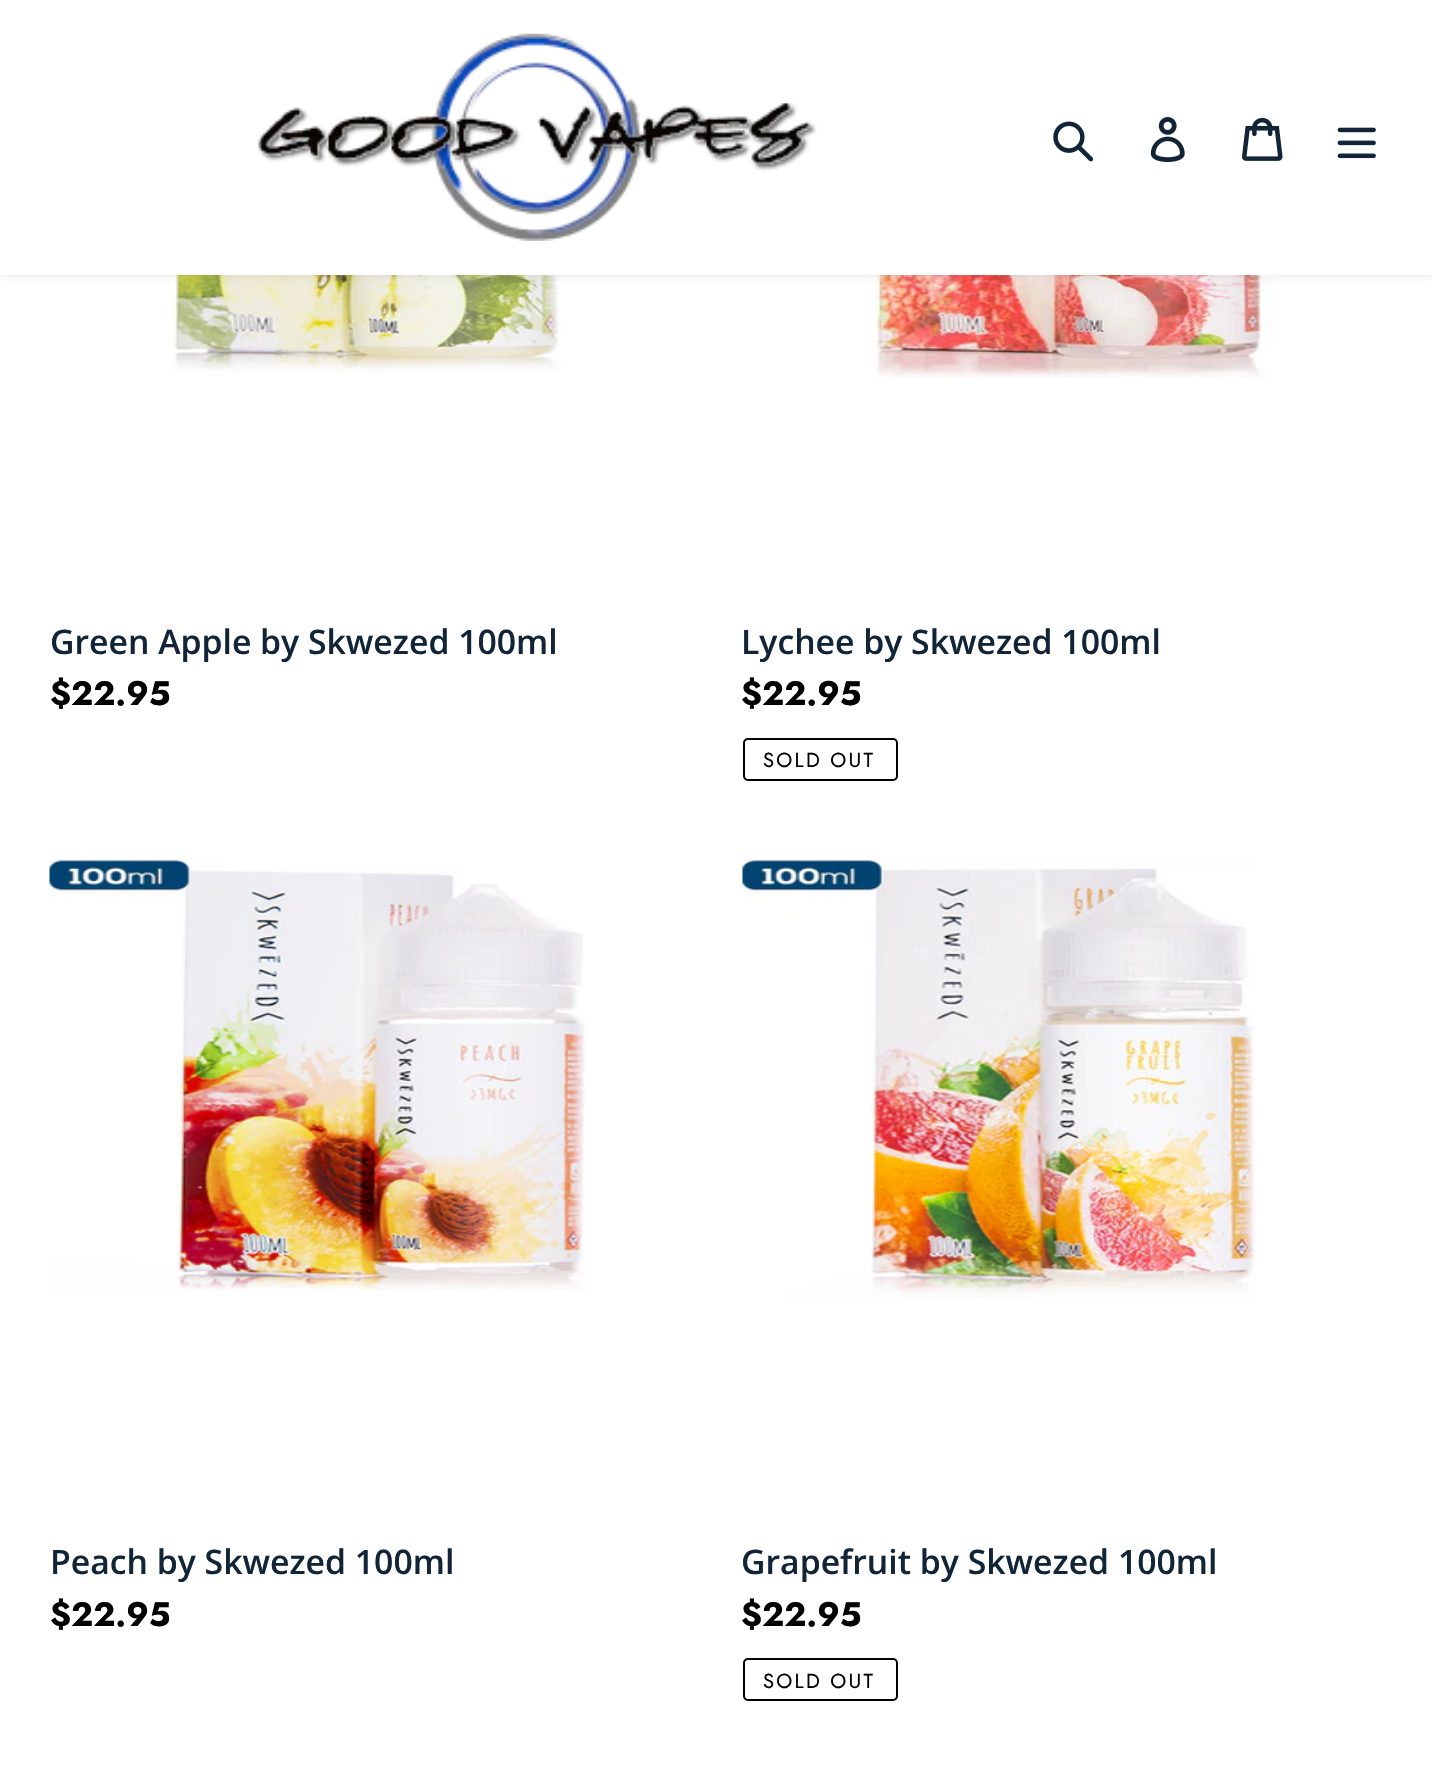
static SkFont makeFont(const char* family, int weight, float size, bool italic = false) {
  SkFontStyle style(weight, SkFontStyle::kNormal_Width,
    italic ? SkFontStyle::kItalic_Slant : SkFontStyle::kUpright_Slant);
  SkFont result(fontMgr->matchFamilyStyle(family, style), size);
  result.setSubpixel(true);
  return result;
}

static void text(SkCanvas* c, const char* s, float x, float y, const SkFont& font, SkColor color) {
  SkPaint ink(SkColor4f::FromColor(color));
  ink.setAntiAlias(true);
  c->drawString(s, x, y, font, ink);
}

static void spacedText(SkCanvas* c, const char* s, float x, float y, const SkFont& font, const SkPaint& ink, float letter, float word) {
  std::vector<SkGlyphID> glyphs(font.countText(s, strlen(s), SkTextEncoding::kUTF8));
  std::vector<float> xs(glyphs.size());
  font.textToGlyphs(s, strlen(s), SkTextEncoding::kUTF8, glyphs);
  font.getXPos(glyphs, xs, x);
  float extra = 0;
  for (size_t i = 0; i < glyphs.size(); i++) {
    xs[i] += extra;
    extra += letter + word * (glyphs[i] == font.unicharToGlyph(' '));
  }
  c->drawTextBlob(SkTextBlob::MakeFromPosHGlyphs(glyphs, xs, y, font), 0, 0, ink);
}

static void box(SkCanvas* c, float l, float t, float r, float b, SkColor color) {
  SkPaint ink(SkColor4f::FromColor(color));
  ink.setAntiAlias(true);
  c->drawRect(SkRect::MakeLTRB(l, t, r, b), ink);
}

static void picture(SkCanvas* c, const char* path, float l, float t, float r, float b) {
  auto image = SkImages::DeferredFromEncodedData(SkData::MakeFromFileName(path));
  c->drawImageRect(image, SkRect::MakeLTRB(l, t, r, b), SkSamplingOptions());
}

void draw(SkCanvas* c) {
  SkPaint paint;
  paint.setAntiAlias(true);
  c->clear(0xffffffff);
  picture(c, "img_06.png", 171, 275, 561, 373);
  picture(c, "img_07.png", 867, 275, 1277, 378);
  paint.setColor(0x1a000000);
  paint.setMaskFilter(SkMaskFilter::MakeBlur(kNormal_SkBlurStyle, 4.5f));
  c->drawRect(SkRect::MakeLTRB(0, 5, 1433, 275), paint);
  paint.setMaskFilter(nullptr);
  box(c, 0, 0, 1432, 275, 0xffffffff);
  picture(c, "img_01.png", 258, 33, 817, 241);
  picture(c, "img_02.png", 1053, 121, 1094, 162);
  picture(c, "img_03.png", 1150, 117, 1185, 162);
  picture(c, "img_04.png", 1242, 117, 1283, 161);
  picture(c, "img_05.png", 1337, 127, 1376, 159);
  SkFont face1 = makeFont("Open Sans", 600, 33.75f);
  text(c, "Green Apple by Skwezed 100ml", 50, 654, face1, 0xff112438);
  SkFont face2 = makeFont("Jost", 700, 33.75f);
  text(c, "$22.95", 50, 705, face2, 0xff000000);
  text(c, "Lychee by Skwezed 100ml", 741, 654, face1, 0xff112438);
  text(c, "$22.95", 741, 705, face2, 0xff000000);
  paint.setStyle(SkPaint::kStroke_Style);
  paint.setStrokeWidth(2);
  paint.setColor(0xff000000);
  c->drawRoundRect(SkRect::MakeLTRB(744, 739, 897, 780), 4, 4, paint);
  SkFont face3 = makeFont("Jost", 400, 20.25f);
  paint.setStyle(SkPaint::kFill_Style);
  spacedText(c, "SOLD OUT", 763, 767, face3, paint, 2.25f, 0);
  picture(c, "img_08.png", 49, 859, 586, 1291);
  text(c, "Peach by Skwezed 100ml", 50, 1574, face1, 0xff112438);
  text(c, "$22.95", 50, 1626, face2, 0xff000000);
  picture(c, "img_09.png", 742, 859, 1256, 1298);
  text(c, "Grapefruit by Skwezed 100ml", 741, 1574, face1, 0xff112438);
  text(c, "$22.95", 741, 1626, face2, 0xff000000);
  paint.setStyle(SkPaint::kStroke_Style);
  c->drawRoundRect(SkRect::MakeLTRB(744, 1659, 897, 1700), 4, 4, paint);
  paint.setStyle(SkPaint::kFill_Style);
  spacedText(c, "SOLD OUT", 763, 1688, face3, paint, 2.25f, 0);
}
